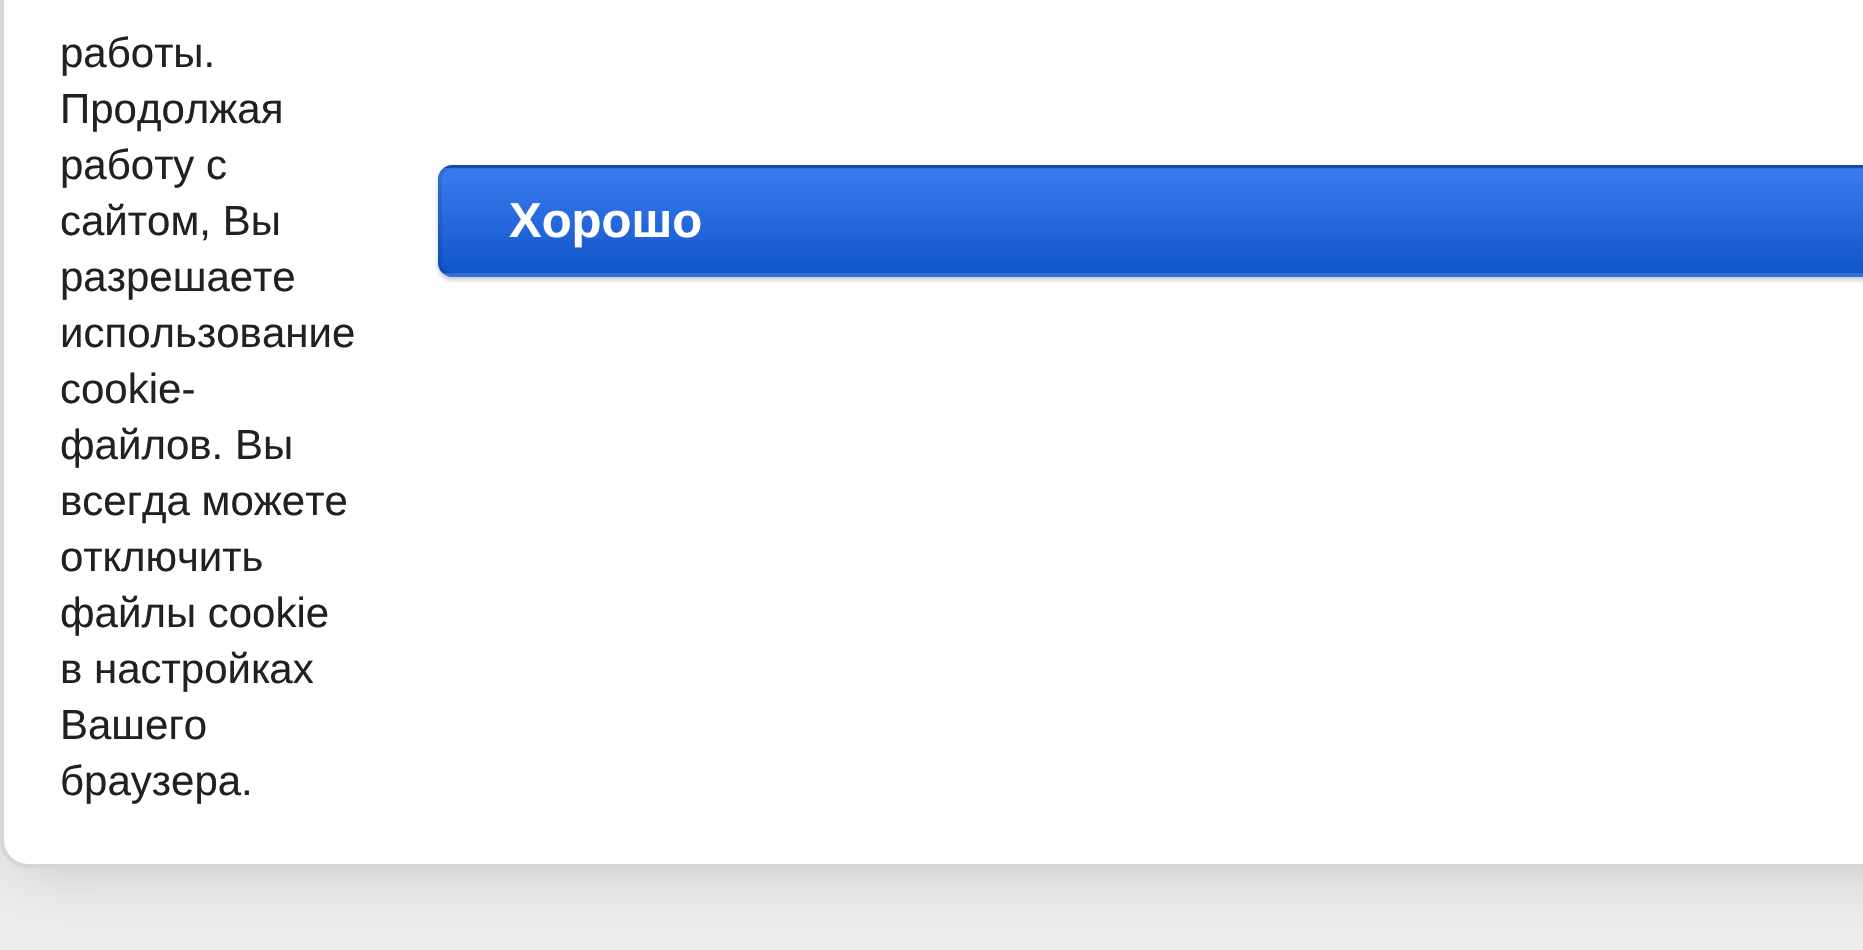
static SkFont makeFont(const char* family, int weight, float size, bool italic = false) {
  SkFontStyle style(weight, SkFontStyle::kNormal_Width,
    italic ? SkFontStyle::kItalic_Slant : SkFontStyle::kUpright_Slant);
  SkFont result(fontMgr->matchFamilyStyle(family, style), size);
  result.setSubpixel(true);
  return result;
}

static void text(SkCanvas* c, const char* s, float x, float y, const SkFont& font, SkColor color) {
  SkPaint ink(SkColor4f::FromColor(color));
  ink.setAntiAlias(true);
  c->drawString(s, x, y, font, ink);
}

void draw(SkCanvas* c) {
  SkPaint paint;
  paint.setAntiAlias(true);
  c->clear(0xffeeeeee);
  paint.setColor(0x24000000);
  paint.setMaskFilter(SkMaskFilter::MakeBlur(kNormal_SkBlurStyle, 31.5f));
  c->drawRoundRect(SkRect::MakeLTRB(7, -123, 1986, 875), 28, 28, paint);
  paint.setMaskFilter(nullptr);
  paint.setColor(0xffffffff);
  c->drawRoundRect(SkRect::MakeLTRB(2, -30, 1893, 866), 26, 26, paint);
  paint.setStyle(SkPaint::kStroke_Style);
  paint.setStrokeWidth(4);
  paint.setColor(0xffd6d6d6);
  c->drawRoundRect(SkRect::MakeLTRB(2, -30, 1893, 866), 26, 26, paint);
  SkFont face1 = makeFont("Liberation Sans", 400, 42);
  text(c, "работы.", 60, 67, face1, 0xff212121);
  text(c, "Продолжая", 60, 123, face1, 0xff212121);
  text(c, "работу с", 60, 179, face1, 0xff212121);
  text(c, "сайтом, Вы", 60, 235, face1, 0xff212121);
  text(c, "разрешаете", 60, 291, face1, 0xff212121);
  text(c, "использование", 60, 347, face1, 0xff212121);
  text(c, "cookie-", 60, 403, face1, 0xff212121);
  text(c, "файлов. Вы", 60, 459, face1, 0xff212121);
  text(c, "всегда можете", 60, 515, face1, 0xff212121);
  text(c, "отключить", 60, 571, face1, 0xff212121);
  text(c, "файлы cookie", 60, 627, face1, 0xff212121);
  text(c, "в настройках", 60, 683, face1, 0xff212121);
  text(c, "Вашего", 60, 739, face1, 0xff212121);
  text(c, "браузера.", 60, 795, face1, 0xff212121);
  paint.setStyle(SkPaint::kFill_Style);
  paint.setColor(0x33000000);
  paint.setMaskFilter(SkMaskFilter::MakeBlur(kNormal_SkBlurStyle, 2));
  c->drawRoundRect(SkRect::MakeLTRB(438, 168, 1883, 280), 14, 14, paint);
  paint.setMaskFilter(nullptr);
  c->save();
  c->clipPath(SkPathBuilder().moveTo(452, 165).lineTo(2874, 165).cubicTo(2881.5f, 165, 2888, 171.5f, 2888, 179).lineTo(2888, 263).cubicTo(2888, 270.5f, 2881.5f, 277, 2874, 277).lineTo(452, 277).cubicTo(444.5f, 277, 438, 270.5f, 438, 263).lineTo(438, 179).cubicTo(438, 171.5f, 444.5f, 165, 452, 165).close().detach(), true);
  {
    const SkColor colors[] = {0xff3b7cef, 0xff1155cc};
    const float stops[] = {0, 1};
    const SkPoint ends[] = {{1663, 63}, {1663, 168}};
    paint.setShader(SkGradientShader::MakeLinear(ends, colors, stops, 2, SkTileMode::kClamp));
    paint.setAlpha(255);
  }
  c->drawRect(SkRect::MakeLTRB(438, 165, 1863, 168), paint);
  {
    const SkColor colors[] = {0xff3b7cef, 0xff1155cc};
    const float stops[] = {0, 1};
    const SkPoint ends[] = {{1663, 168}, {1663, 273}};
    paint.setShader(SkGradientShader::MakeLinear(ends, colors, stops, 2, SkTileMode::kClamp));
    paint.setAlpha(255);
  }
  c->drawRect(SkRect::MakeLTRB(438, 168, 1863, 273), paint);
  {
    const SkColor colors[] = {0xff3b7cef, 0xff1155cc};
    const float stops[] = {0, 1};
    const SkPoint ends[] = {{1663, 273}, {1663, 378}};
    paint.setShader(SkGradientShader::MakeLinear(ends, colors, stops, 2, SkTileMode::kClamp));
    paint.setAlpha(255);
  }
  c->drawRect(SkRect::MakeLTRB(438, 273, 1863, 277), paint);
  c->restore();
  paint.setStyle(SkPaint::kStroke_Style);
  paint.setShader(nullptr);
  paint.setColor(0x1a000000);
  c->drawRoundRect(SkRect::MakeLTRB(440, 167, 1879, 275), 12, 12, paint);
  SkFont face2 = makeFont("Liberation Sans", 700, 49);
  text(c, "Хорошо", 509, 237, face2, 0xffffffff);
}
